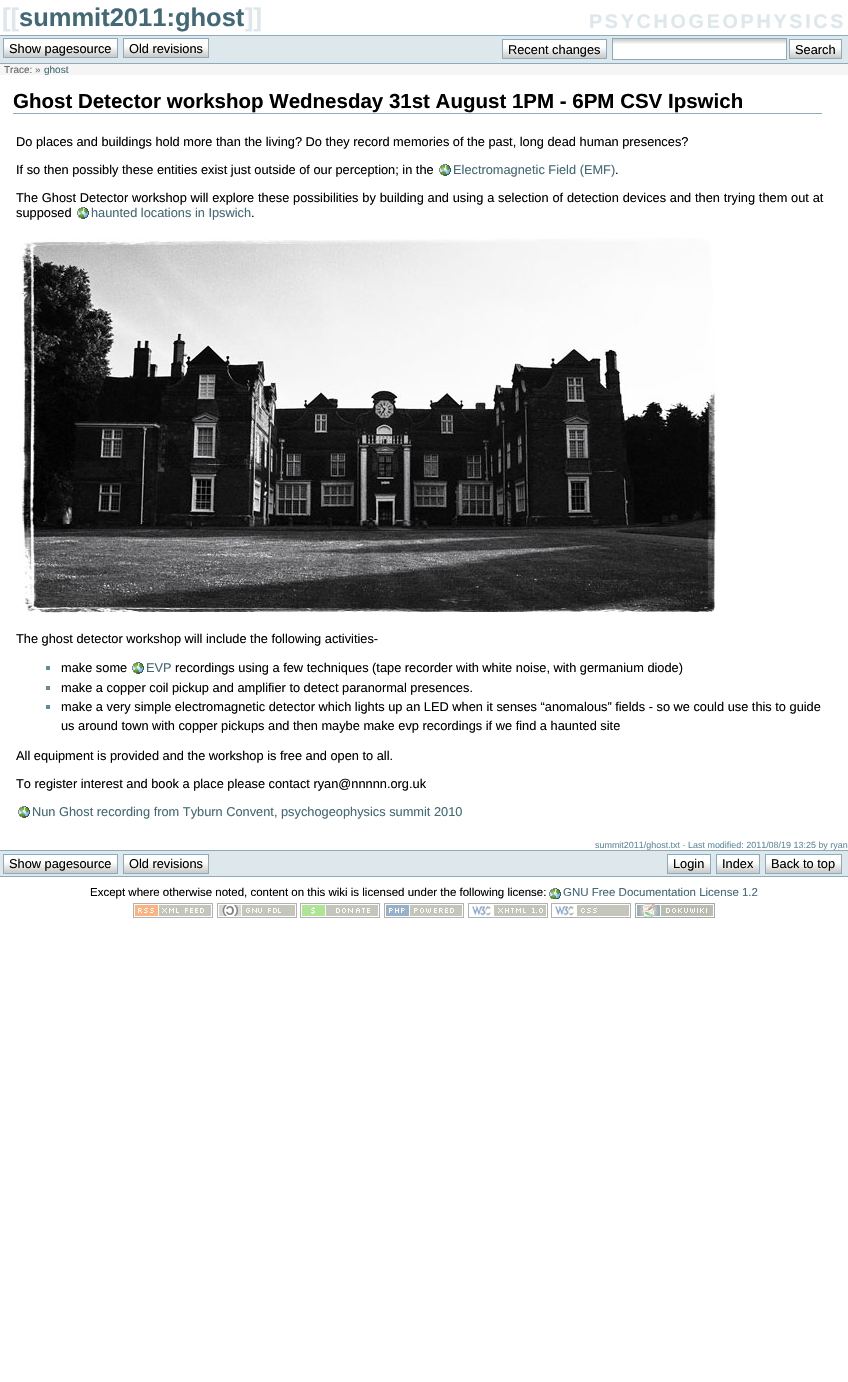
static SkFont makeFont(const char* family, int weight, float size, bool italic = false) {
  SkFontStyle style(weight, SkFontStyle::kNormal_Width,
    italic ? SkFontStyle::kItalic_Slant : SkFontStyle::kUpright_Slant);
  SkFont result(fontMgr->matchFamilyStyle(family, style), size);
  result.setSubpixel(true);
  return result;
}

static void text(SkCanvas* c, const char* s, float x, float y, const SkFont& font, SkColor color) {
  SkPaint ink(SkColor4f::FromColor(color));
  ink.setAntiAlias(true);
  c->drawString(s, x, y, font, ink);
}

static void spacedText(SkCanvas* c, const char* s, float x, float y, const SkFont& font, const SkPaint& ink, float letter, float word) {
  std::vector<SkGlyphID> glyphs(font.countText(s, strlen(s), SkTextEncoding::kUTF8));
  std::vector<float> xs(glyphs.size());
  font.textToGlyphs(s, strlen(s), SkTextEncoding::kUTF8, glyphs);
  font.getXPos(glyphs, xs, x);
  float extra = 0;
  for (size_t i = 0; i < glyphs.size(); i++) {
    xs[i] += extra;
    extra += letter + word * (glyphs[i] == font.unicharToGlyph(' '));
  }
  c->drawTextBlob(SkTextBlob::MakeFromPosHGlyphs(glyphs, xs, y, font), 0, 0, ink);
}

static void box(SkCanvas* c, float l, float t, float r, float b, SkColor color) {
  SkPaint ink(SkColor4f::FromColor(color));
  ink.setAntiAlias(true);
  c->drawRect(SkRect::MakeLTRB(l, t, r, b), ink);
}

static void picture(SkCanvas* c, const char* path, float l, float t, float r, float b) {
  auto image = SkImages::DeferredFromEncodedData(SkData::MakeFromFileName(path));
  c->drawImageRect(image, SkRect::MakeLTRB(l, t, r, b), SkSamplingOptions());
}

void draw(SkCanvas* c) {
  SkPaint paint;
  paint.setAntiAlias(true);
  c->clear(0xffffffff);
  SkFont face1 = makeFont("Liberation Sans", 700, 25.5f);
  text(c, "[[", 2, 26, face1, 0xffdee7ec);
  text(c, "summit2011:ghost", 19, 26, face1, 0xff436976);
  text(c, "]]", 245, 26, face1, 0xffdee7ec);
  SkFont face2 = makeFont("Liberation Sans", 700, 19.75f);
  paint.setColor(0xffdee7ec);
  spacedText(c, "PSYCHOGEOPHYSICS", 589, 28, face2, paint, 2.7f, 0);
  box(c, 0, 36, 848, 63, 0xffdee7ec);
  box(c, 0, 35, 848, 36, 0xff8cacbb);
  box(c, 0, 63, 848, 64, 0xff8cacbb);
  box(c, 4, 39, 117, 56, 0xffffffff);
  picture(c, "img_01.png", 4, 47, 117, 57);
  paint.setStyle(SkPaint::kStroke_Style);
  paint.setStrokeWidth(1);
  paint.setColor(0xff8cacbb);
  c->drawRect(SkRect::MakeLTRB(3.5f, 38.5f, 117.5f, 57.5f), paint);
  SkFont face3 = makeFont("Liberation Sans", 400, 12.8f);
  text(c, "Show pagesource", 9, 53, face3, 0xff000000);
  box(c, 124, 39, 208, 56, 0xffffffff);
  picture(c, "img_02.png", 124, 47, 208, 57);
  c->drawRect(SkRect::MakeLTRB(123.5f, 38.5f, 208.5f, 57.5f), paint);
  text(c, "Old revisions", 129, 53, face3, 0xff000000);
  box(c, 503, 40, 606, 57, 0xffffffff);
  picture(c, "img_03.png", 503, 48, 606, 58);
  c->drawRect(SkRect::MakeLTRB(502.5f, 39.5f, 606.5f, 58.5f), paint);
  text(c, "Recent changes", 508, 54, face3, 0xff000000);
  box(c, 613, 39, 786, 59, 0xffffffff);
  picture(c, "img_04.png", 613, 39, 786, 44);
  c->drawRect(SkRect::MakeLTRB(612.5f, 38.5f, 786.5f, 59.5f), paint);
  box(c, 790, 40, 841, 57, 0xffffffff);
  picture(c, "img_05.png", 790, 48, 841, 58);
  c->drawRect(SkRect::MakeLTRB(789.5f, 39.5f, 841.5f, 58.5f), paint);
  text(c, "Search", 795, 54, face3, 0xff000000);
  box(c, 0, 64, 848, 75, 0xfff5f5f5);
  SkFont face4 = makeFont("Liberation Sans", 400, 10);
  text(c, "Trace: »", 4, 73, face4, 0xff666666);
  text(c, "ghost", 44, 73, face4, 0xff436976);
  box(c, 13, 113, 822, 114, 0xff8cacbb);
  SkFont face5 = makeFont("Liberation Sans", 700, 20.5f);
  text(c, "Ghost Detector workshop Wednesday 31st August 1PM - 6PM CSV Ipswich", 13, 108, face5, 0xff000000);
  text(c, "Do places and buildings hold more than the living? Do they record memories of the past, long dead human presences?", 16, 146, face3, 0xff000000);
  text(c, "If so then possibly these entities exist just outside of our perception; in the", 16, 174, face3, 0xff000000);
  picture(c, "img_06.png", 439, 164, 451, 176);
  text(c, "Electromagnetic Field (EMF)", 453, 174, face3, 0xff436976);
  text(c, ".", 615, 174, face3, 0xff000000);
  paint.setStyle(SkPaint::kFill_Style);
  paint.setColor(0xff000000);
  spacedText(c, "The Ghost Detector workshop will explore these possibilities by building and using a selection of detection devices and then trying them out at", 16, 202, face3, paint, 0, 0.25f);
  text(c, "supposed", 16, 217, face3, 0xff000000);
  picture(c, "img_06.png", 77, 207, 89, 219);
  text(c, "haunted locations in Ipswich", 91, 217, face3, 0xff436976);
  text(c, ".", 251, 217, face3, 0xff000000);
  picture(c, "img_07.png", 19, 237, 718, 613);
  text(c, "The ghost detector workshop will include the following activities-", 16, 643, face3, 0xff000000);
  box(c, 46, 666, 50, 670, 0xff638c9c);
  text(c, "make some", 61, 672, face3, 0xff000000);
  picture(c, "img_06.png", 132, 662, 144, 674);
  text(c, "EVP", 146, 672, face3, 0xff436976);
  text(c, "recordings using a few techniques (tape recorder with white noise, with germanium diode)", 175, 672, face3, 0xff000000);
  box(c, 46, 686, 50, 690, 0xff638c9c);
  text(c, "make a copper coil pickup and amplifier to detect paranormal presences.", 61, 692, face3, 0xff000000);
  box(c, 46, 705, 50, 709, 0xff638c9c);
  text(c, "make a very simple electromagnetic detector which lights up an LED when it senses “anomalous” fields - so we could use this to guide", 61, 711, face3, 0xff000000);
  text(c, "us around town with copper pickups and then maybe make evp recordings if we find a haunted site", 61, 730, face3, 0xff000000);
  text(c, "All equipment is provided and the workshop is free and open to all.", 16, 760, face3, 0xff000000);
  text(c, "To register interest and book a place please contact ryan@nnnnn.org.uk", 16, 788, face3, 0xff000000);
  picture(c, "img_06.png", 18, 806, 30, 818);
  text(c, "Nun Ghost recording from Tyburn Convent, psychogeophysics summit 2010", 32, 816, face3, 0xff436976);
  SkFont face6 = makeFont("Liberation Sans", 400, 8.95f);
  text(c, "summit2011/ghost.txt · Last modified: 2011/08/19 13:25 by ryan", 595, 848, face6, 0xff638c9c);
  box(c, 0, 851, 848, 876, 0xffdee7ec);
  box(c, 0, 850, 848, 851, 0xff8cacbb);
  box(c, 0, 876, 848, 877, 0xff8cacbb);
  box(c, 4, 855, 117, 872, 0xffffffff);
  picture(c, "img_01.png", 4, 863, 117, 873);
  paint.setStyle(SkPaint::kStroke_Style);
  paint.setColor(0xff8cacbb);
  c->drawRect(SkRect::MakeLTRB(3.5f, 854.5f, 117.5f, 873.5f), paint);
  text(c, "Show pagesource", 9, 868, face3, 0xff000000);
  box(c, 124, 855, 208, 872, 0xffffffff);
  picture(c, "img_02.png", 124, 863, 208, 873);
  c->drawRect(SkRect::MakeLTRB(123.5f, 854.5f, 208.5f, 873.5f), paint);
  text(c, "Old revisions", 129, 868, face3, 0xff000000);
  box(c, 668, 855, 710, 872, 0xffffffff);
  picture(c, "img_08.png", 668, 863, 710, 873);
  c->drawRect(SkRect::MakeLTRB(667.5f, 854.5f, 710.5f, 873.5f), paint);
  text(c, "Login", 673, 868, face3, 0xff000000);
  box(c, 717, 855, 759, 872, 0xffffffff);
  picture(c, "img_08.png", 717, 863, 759, 873);
  c->drawRect(SkRect::MakeLTRB(716.5f, 854.5f, 759.5f, 873.5f), paint);
  text(c, "Index", 722, 868, face3, 0xff000000);
  box(c, 766, 855, 841, 872, 0xffffffff);
  picture(c, "img_09.png", 766, 863, 841, 873);
  c->drawRect(SkRect::MakeLTRB(765.5f, 854.5f, 841.5f, 873.5f), paint);
  text(c, "Back to top", 771, 868, face3, 0xff000000);
  SkFont face7 = makeFont("Liberation Sans", 400, 11.5f);
  text(c, "Except where otherwise noted, content on this wiki is licensed under the following license:", 90, 896, face7, 0xff000000);
  picture(c, "img_10.png", 549, 888, 561, 899);
  text(c, "GNU Free Documentation License 1.2", 563, 896, face7, 0xff436976);
  picture(c, "img_11.png", 133, 903, 213, 918);
  picture(c, "img_12.png", 217, 903, 297, 918);
  picture(c, "img_13.png", 300, 903, 380, 918);
  picture(c, "img_14.png", 384, 903, 464, 918);
  picture(c, "img_15.png", 468, 903, 548, 918);
  picture(c, "img_16.png", 551, 903, 631, 918);
  picture(c, "img_17.png", 635, 903, 715, 918);
}
